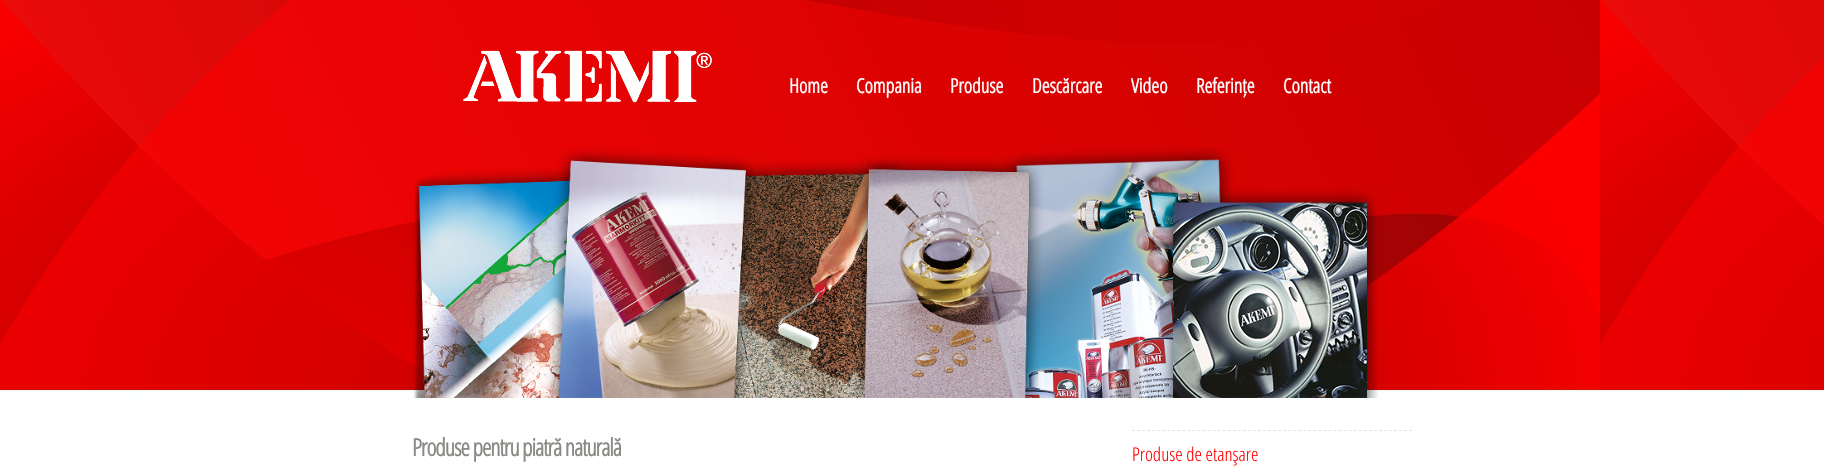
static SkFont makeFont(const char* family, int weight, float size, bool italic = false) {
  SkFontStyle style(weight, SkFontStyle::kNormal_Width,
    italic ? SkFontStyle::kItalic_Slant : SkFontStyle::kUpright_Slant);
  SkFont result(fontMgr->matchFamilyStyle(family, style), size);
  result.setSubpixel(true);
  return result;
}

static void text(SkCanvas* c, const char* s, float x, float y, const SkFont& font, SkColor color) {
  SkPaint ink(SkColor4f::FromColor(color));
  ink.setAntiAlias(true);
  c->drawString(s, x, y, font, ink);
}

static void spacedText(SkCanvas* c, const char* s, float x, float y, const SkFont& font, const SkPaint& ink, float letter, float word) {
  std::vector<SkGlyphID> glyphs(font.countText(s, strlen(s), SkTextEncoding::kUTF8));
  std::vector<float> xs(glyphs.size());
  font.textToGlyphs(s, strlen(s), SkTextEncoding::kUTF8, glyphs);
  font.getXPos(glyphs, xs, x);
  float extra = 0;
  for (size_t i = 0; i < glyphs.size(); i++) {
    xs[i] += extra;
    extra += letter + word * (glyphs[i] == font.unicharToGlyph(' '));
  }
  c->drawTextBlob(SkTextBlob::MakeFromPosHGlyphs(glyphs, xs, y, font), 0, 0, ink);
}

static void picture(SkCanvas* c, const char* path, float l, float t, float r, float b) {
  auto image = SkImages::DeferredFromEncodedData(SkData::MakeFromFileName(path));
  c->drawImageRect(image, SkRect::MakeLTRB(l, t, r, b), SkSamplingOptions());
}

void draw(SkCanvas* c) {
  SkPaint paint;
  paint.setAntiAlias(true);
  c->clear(0xffffffff);
  picture(c, "img_01.png", 0, 0, 1824, 430);
  picture(c, "img_02.png", 463, 50, 712, 103);
  SkFont face1 = makeFont("Open Sans Condensed", 700, 20);
  text(c, "Home", 789, 93, face1, 0xffffffff);
  text(c, "Compania", 856, 93, face1, 0xffffffff);
  text(c, "Produse", 950, 93, face1, 0xffffffff);
  text(c, "Descărcare", 1032, 93, face1, 0xffffffff);
  text(c, "Video", 1131, 93, face1, 0xffffffff);
  text(c, "Referințe", 1196, 93, face1, 0xffffffff);
  text(c, "Contact", 1283, 93, face1, 0xffffffff);
  picture(c, "img_03.png", 413, 148, 1378, 398);
  SkFont face2 = makeFont("Open Sans Condensed", 700, 24);
  paint.setColor(0xff8a8985);
  spacedText(c, "Produse pentru piatră naturală", 412, 456, face2, paint, -1, 0);
  paint.setStyle(SkPaint::kStroke_Style);
  paint.setStrokeWidth(1);
  paint.setColor(0xffe7e2dc);
  paint.setPathEffect(SkDashPathEffect::Make({{3, 2.04f}}, 0));
  c->drawPath(SkPathBuilder().moveTo(1132, 430.5f).lineTo(1412, 430.5f).detach(), paint);
  paint.setPathEffect(nullptr);
  SkFont face3 = makeFont("Open Sans Condensed", 300, 19);
  text(c, "Produse de etanşare", 1132, 461, face3, 0xffff0000);
}
